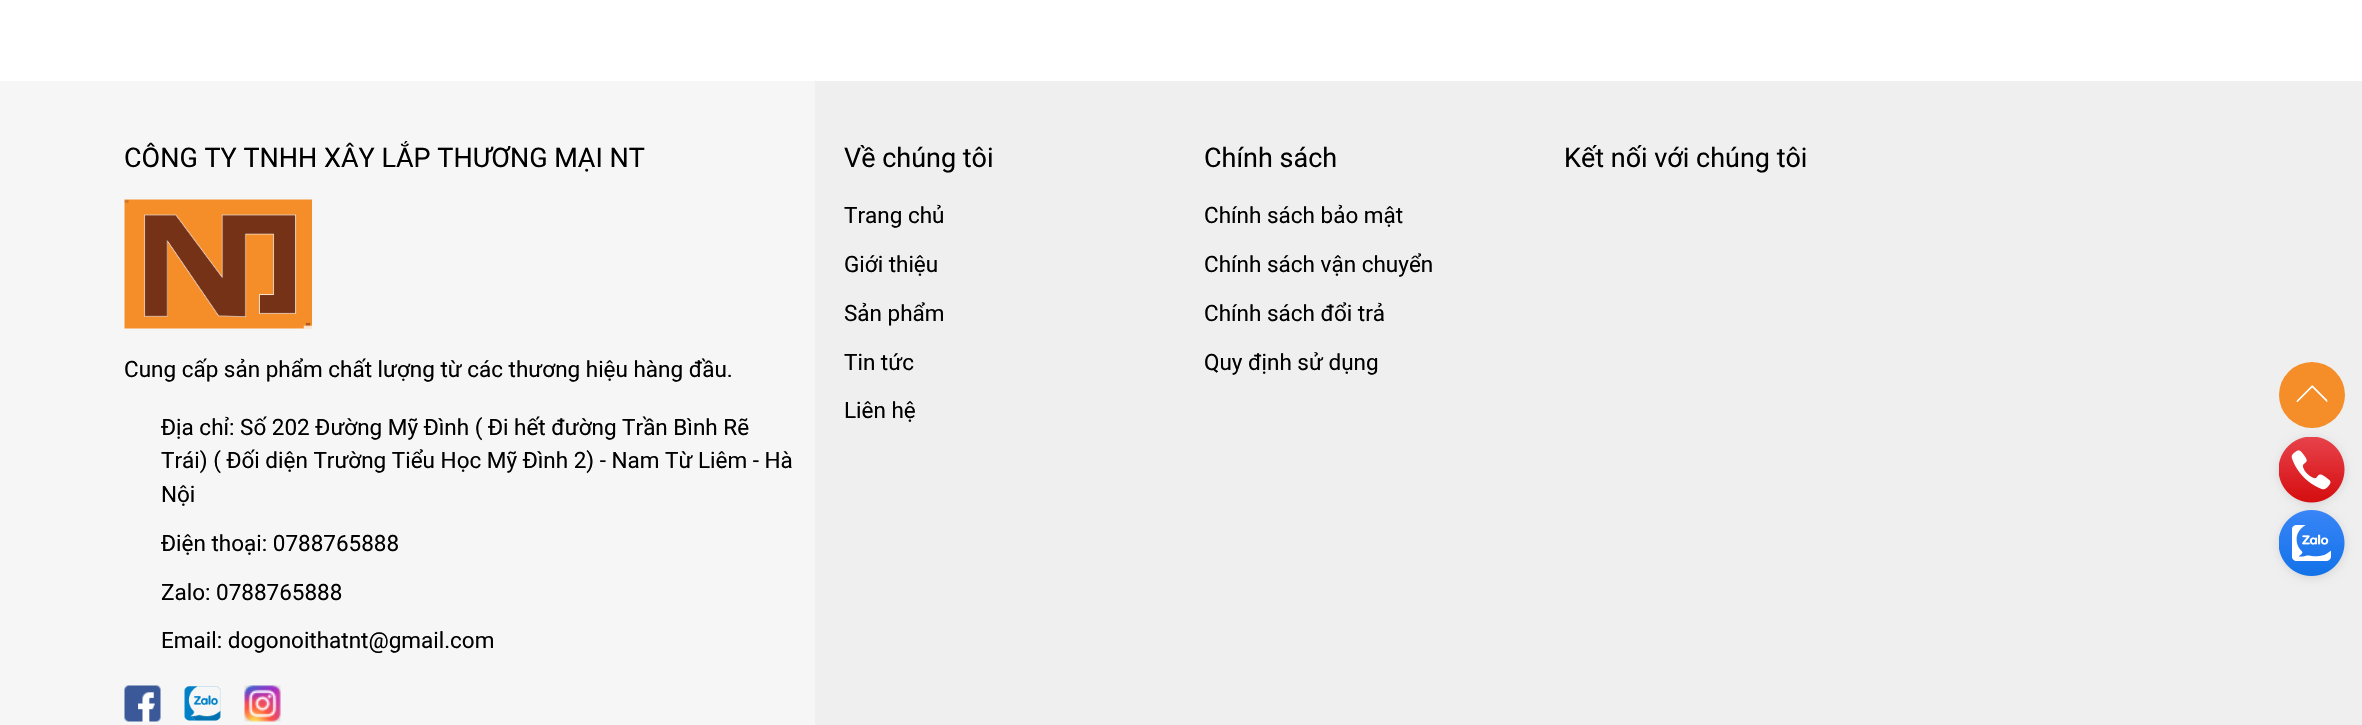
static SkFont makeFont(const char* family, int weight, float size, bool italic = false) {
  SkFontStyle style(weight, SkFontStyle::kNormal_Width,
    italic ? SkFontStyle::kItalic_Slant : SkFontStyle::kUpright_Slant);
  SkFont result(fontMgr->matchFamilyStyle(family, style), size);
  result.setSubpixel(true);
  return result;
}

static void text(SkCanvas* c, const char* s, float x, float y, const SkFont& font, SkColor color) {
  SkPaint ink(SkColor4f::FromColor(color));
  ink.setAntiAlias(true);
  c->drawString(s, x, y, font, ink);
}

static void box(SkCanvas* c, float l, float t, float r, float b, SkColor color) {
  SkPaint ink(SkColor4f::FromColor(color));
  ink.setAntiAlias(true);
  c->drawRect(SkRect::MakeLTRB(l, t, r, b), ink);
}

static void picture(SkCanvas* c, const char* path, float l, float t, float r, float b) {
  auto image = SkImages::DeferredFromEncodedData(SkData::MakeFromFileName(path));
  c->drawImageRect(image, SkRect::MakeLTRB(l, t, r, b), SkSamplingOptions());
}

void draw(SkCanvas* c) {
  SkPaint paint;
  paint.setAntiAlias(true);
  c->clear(0xffffffff);
  box(c, 815, 81, 2362, 725, 0xffefefef);
  box(c, 0, 81, 815, 725, 0xfff6f6f6);
  SkFont face1 = makeFont("Roboto", 400, 27);
  text(c, "CÔNG TY TNHH XÂY LẮP THƯƠNG MẠI NT", 124, 167, face1, 0xff000000);
  picture(c, "img_01.png", 124, 199, 312, 329);
  SkFont face2 = makeFont("Roboto", 400, 22.5f);
  text(c, "Cung cấp sản phẩm chất lượng từ các thương hiệu hàng đầu.", 124, 377, face2, 0xff000000);
  text(c, "Địa chỉ: Số 202 Đường Mỹ Đình ( Đi hết đường Trần Bình Rẽ", 161, 435, face2, 0xff000000);
  text(c, "Trái) ( Đối diện Trường Tiểu Học Mỹ Đình 2) - Nam Từ Liêm - Hà", 161, 468, face2, 0xff000000);
  text(c, "Nội", 161, 502, face2, 0xff000000);
  text(c, "Điện thoại: 0788765888", 161, 551, face2, 0xff000000);
  text(c, "Zalo: 0788765888", 161, 600, face2, 0xff000000);
  text(c, "Email: dogonoithatnt@gmail.com", 161, 648, face2, 0xff000000);
  picture(c, "img_02.png", 124, 685, 161, 722);
  picture(c, "img_03.png", 184, 686, 221, 721);
  picture(c, "img_04.png", 244, 685, 281, 722);
  text(c, "Về chúng tôi", 844, 167, face1, 0xff000000);
  text(c, "Trang chủ", 844, 223, face2, 0xff000000);
  text(c, "Giới thiệu", 844, 272, face2, 0xff000000);
  text(c, "Sản phẩm", 844, 321, face2, 0xff000000);
  text(c, "Tin tức", 844, 370, face2, 0xff000000);
  text(c, "Liên hệ", 844, 418, face2, 0xff000000);
  text(c, "Chính sách", 1204, 167, face1, 0xff000000);
  text(c, "Chính sách bảo mật", 1204, 223, face2, 0xff000000);
  text(c, "Chính sách vận chuyển", 1204, 272, face2, 0xff000000);
  text(c, "Chính sách đổi trả", 1204, 321, face2, 0xff000000);
  text(c, "Quy định sử dụng", 1204, 370, face2, 0xff000000);
  text(c, "Kết nối với chúng tôi", 1564, 167, face1, 0xff000000);
  paint.setColor(0xfff58d29);
  c->drawCircle(2312, 395, 33, paint);
  picture(c, "img_05.png", 2296, 385, 2328, 402);
  paint.setColor(0x1c000000);
  paint.setMaskFilter(SkMaskFilter::MakeBlur(kNormal_SkBlurStyle, 4));
  c->drawRoundRect(SkRect::MakeLTRB(2279, 438, 2345, 504), 33, 33, paint);
  paint.setMaskFilter(nullptr);
  picture(c, "img_06.png", 2279, 437, 2345, 503);
  paint.setMaskFilter(SkMaskFilter::MakeBlur(kNormal_SkBlurStyle, 4));
  c->drawRoundRect(SkRect::MakeLTRB(2279, 512, 2345, 578), 33, 33, paint);
  paint.setMaskFilter(nullptr);
  picture(c, "img_07.png", 2279, 510, 2345, 576);
}
